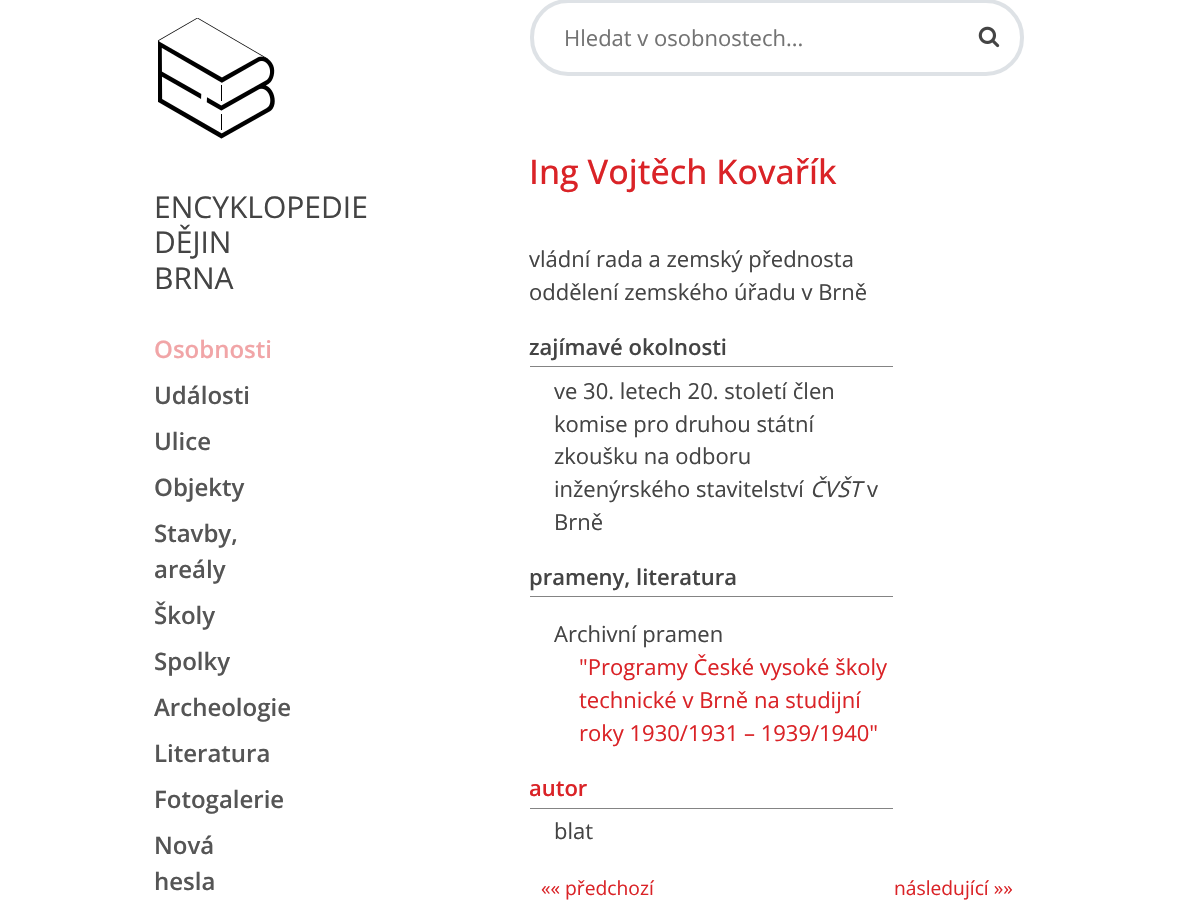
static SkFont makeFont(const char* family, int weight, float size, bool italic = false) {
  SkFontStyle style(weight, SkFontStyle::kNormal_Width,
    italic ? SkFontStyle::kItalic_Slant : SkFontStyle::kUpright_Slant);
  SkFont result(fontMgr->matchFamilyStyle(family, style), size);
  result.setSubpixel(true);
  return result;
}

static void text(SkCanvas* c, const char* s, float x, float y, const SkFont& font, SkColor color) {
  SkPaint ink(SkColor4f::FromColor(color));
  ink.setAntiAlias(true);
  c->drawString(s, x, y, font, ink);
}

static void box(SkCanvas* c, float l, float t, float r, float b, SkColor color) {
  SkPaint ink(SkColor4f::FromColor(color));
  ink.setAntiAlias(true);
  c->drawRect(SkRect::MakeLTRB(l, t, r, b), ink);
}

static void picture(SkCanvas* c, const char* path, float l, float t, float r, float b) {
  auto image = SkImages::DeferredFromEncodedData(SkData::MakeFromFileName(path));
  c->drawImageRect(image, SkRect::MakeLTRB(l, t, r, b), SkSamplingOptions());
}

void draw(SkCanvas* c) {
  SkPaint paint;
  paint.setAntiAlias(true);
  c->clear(0xffffffff);
  picture(c, "img_01.png", 158, 18, 275, 139);
  SkFont face1 = makeFont("Open Sans", 400, 30);
  text(c, "ENCYKLOPEDIE", 154, 218, face1, 0xff444444);
  text(c, "DĚJIN", 154, 253, face1, 0xff444444);
  text(c, "BRNA", 154, 289, face1, 0xff444444);
  SkFont face2 = makeFont("Open Sans", 600, 24);
  text(c, "Osobnosti", 154, 358, face2, 0xfff1a5a7);
  text(c, "Události", 154, 404, face2, 0xff555555);
  text(c, "Ulice", 154, 450, face2, 0xff555555);
  text(c, "Objekty", 154, 496, face2, 0xff555555);
  text(c, "Stavby,", 154, 542, face2, 0xff555555);
  text(c, "areály", 154, 578, face2, 0xff555555);
  text(c, "Školy", 154, 624, face2, 0xff555555);
  text(c, "Spolky", 154, 670, face2, 0xff555555);
  text(c, "Archeologie", 154, 716, face2, 0xff555555);
  text(c, "Literatura", 154, 762, face2, 0xff555555);
  text(c, "Fotogalerie", 154, 808, face2, 0xff555555);
  text(c, "Nová", 154, 854, face2, 0xff555555);
  text(c, "hesla", 154, 890, face2, 0xff555555);
  paint.setStyle(SkPaint::kStroke_Style);
  paint.setStrokeWidth(4);
  paint.setColor(0xffdee2e6);
  c->drawRoundRect(SkRect::MakeLTRB(532, 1, 1022, 74), 36, 36, paint);
  SkFont face3 = makeFont("Open Sans", 400, 22);
  text(c, "Hledat v osobnostech...", 564, 46, face3, 0xff737373);
  picture(c, "img_02.png", 978, 26, 1000, 48);
  SkFont face4 = makeFont("Open Sans", 500, 33.9f);
  text(c, "Ing Vojtěch Kovařík", 529, 184, face4, 0xffda2327);
  text(c, "vládní rada a zemský přednosta", 529, 267, face3, 0xff444444);
  text(c, "oddělení zemského úřadu v Brně", 529, 300, face3, 0xff444444);
  box(c, 530, 366, 893, 367, 0xff848484);
  SkFont face5 = makeFont("Open Sans", 600, 22);
  text(c, "zajímavé okolnosti", 529, 355, face5, 0xff444444);
  text(c, "ve 30. letech 20. století člen", 554, 399, face3, 0xff444444);
  text(c, "komise pro druhou státní", 554, 432, face3, 0xff444444);
  text(c, "zkoušku na odboru", 554, 464, face3, 0xff444444);
  text(c, "inženýrského stavitelství", 554, 497, face3, 0xff444444);
  SkFont face6 = makeFont("Open Sans", 400, 22, true);
  text(c, "ČVŠT", 810, 497, face6, 0xff444444);
  text(c, "v", 867, 497, face3, 0xff444444);
  text(c, "Brně", 554, 530, face3, 0xff444444);
  box(c, 530, 596, 893, 597, 0xff848484);
  text(c, "prameny, literatura", 529, 585, face5, 0xff444444);
  text(c, "Archivní pramen", 554, 642, face3, 0xff444444);
  text(c, "\"Programy České vysoké školy", 579, 675, face3, 0xffda2327);
  text(c, "technické v Brně na studijní", 579, 708, face3, 0xffda2327);
  text(c, "roky 1930/1931 – 1939/1940\"", 579, 741, face3, 0xffda2327);
  box(c, 530, 808, 893, 809, 0xff848484);
  text(c, "autor", 529, 796, face5, 0xffda2327);
  text(c, "blat", 554, 839, face3, 0xff444444);
  SkFont face7 = makeFont("Open Sans", 400, 19.25f);
  text(c, "«« předchozí", 541, 895, face7, 0xffda2327);
  text(c, "následující »»", 894, 895, face7, 0xffda2327);
}
